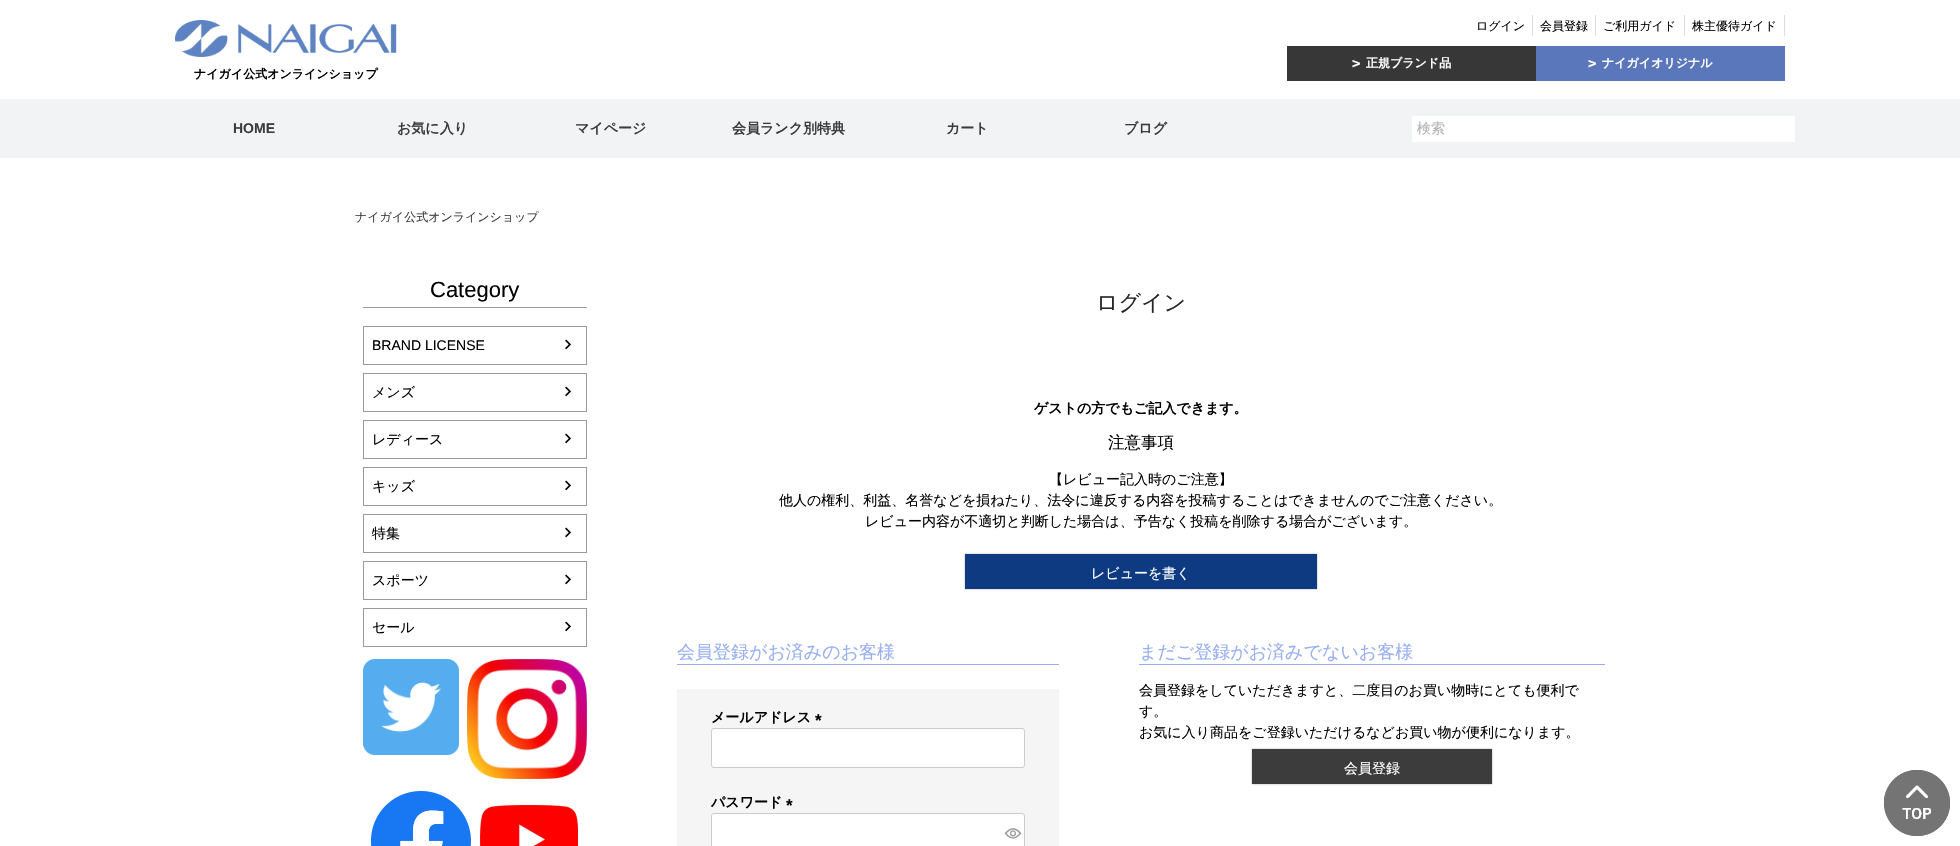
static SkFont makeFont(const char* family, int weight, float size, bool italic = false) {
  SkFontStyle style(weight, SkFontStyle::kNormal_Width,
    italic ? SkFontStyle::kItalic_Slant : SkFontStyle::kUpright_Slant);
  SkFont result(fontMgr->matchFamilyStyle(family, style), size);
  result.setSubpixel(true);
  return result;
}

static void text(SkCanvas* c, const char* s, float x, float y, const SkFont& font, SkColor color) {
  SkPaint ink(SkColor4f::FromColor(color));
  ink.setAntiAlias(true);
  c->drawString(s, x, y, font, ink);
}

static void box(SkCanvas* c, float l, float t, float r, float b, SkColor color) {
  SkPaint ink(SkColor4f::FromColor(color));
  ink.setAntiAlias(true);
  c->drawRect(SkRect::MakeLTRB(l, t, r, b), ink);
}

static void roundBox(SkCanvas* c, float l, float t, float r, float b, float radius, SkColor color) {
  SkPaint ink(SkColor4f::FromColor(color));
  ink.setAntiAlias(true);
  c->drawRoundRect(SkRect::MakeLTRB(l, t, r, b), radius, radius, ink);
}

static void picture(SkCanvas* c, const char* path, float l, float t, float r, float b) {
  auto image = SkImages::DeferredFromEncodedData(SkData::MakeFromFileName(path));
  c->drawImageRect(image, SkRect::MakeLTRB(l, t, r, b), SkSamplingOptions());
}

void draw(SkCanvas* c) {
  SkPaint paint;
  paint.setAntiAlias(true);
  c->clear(0xffffffff);
  box(c, 1532, 15, 1533, 36, 0xffdedede);
  SkFont face1 = makeFont("WenQuanYi Zen Hei", 500, 12);
  text(c, "ログイン", 1476, 30, face1, 0xff000000);
  box(c, 1595, 15, 1596, 36, 0xffdedede);
  text(c, "会員登録", 1540, 30, face1, 0xff000000);
  box(c, 1684, 15, 1685, 36, 0xffdedede);
  text(c, "ご利用ガイド", 1603, 30, face1, 0xff000000);
  box(c, 1784, 15, 1785, 36, 0xffdedede);
  text(c, "株主優待ガイド", 1692, 30, face1, 0xff000000);
  box(c, 1287, 46, 1536, 81, 0xff373737);
  SkFont face2 = makeFont("DejaVu Sans Mono", 700, 14);
  text(c, ">", 1352, 68, face2, 0xffffffff);
  SkFont face3 = makeFont("WenQuanYi Zen Hei", 700, 12);
  text(c, "正規ブランド品", 1366, 67, face3, 0xffffffff);
  box(c, 1536, 46, 1785, 81, 0xff5977ba);
  text(c, ">", 1588, 68, face2, 0xffffffff);
  text(c, "ナイガイオリジナル", 1602, 67, face3, 0xffffffff);
  picture(c, "img_01.png", 175, 20, 397, 57);
  text(c, "ナイガイ公式オンラインショップ", 194, 78, face3, 0xff000000);
  box(c, 0, 99, 1960, 158, 0xfff2f3f5);
  SkFont face4 = makeFont("Liberation Sans", 700, 14);
  text(c, "HOME", 233, 133, face4, 0xff3c3c3c);
  SkFont face5 = makeFont("WenQuanYi Zen Hei", 700, 14);
  text(c, "お気に入り", 397, 133, face5, 0xff3c3c3c);
  text(c, "マイページ", 575, 133, face5, 0xff3c3c3c);
  text(c, "会員ランク別特典", 732, 133, face5, 0xff3c3c3c);
  text(c, "カート", 946, 133, face5, 0xff3c3c3c);
  text(c, "ブログ", 1124, 133, face5, 0xff3c3c3c);
  box(c, 1412, 116, 1795, 142, 0xffffffff);
  SkFont face6 = makeFont("WenQuanYi Zen Hei", 500, 14);
  text(c, "検索", 1417, 133, face6, 0xffb1b1b1);
  text(c, "ナイガイ公式オンラインショップ", 355, 221, face1, 0xff3c3c3c);
  box(c, 363, 307, 587, 308, 0xff999999);
  SkFont face7 = makeFont("Liberation Sans", 400, 22);
  text(c, "Category", 430, 297, face7, 0xff000000);
  paint.setStyle(SkPaint::kStroke_Style);
  paint.setStrokeWidth(1);
  paint.setColor(0xff999999);
  c->drawRect(SkRect::MakeLTRB(363.5f, 326.5f, 586.5f, 364.5f), paint);
  SkFont face8 = makeFont("Liberation Sans", 400, 14);
  text(c, "BRAND LICENSE", 372, 350, face8, 0xff000000);
  picture(c, "img_02.png", 565, 339, 571, 350);
  c->drawRect(SkRect::MakeLTRB(363.5f, 373.5f, 586.5f, 411.5f), paint);
  text(c, "メンズ", 372, 397, face6, 0xff000000);
  picture(c, "img_02.png", 565, 386, 571, 397);
  c->drawRect(SkRect::MakeLTRB(363.5f, 420.5f, 586.5f, 458.5f), paint);
  text(c, "レディース", 372, 444, face6, 0xff000000);
  picture(c, "img_02.png", 565, 433, 571, 444);
  c->drawRect(SkRect::MakeLTRB(363.5f, 467.5f, 586.5f, 505.5f), paint);
  text(c, "キッズ", 372, 491, face6, 0xff000000);
  picture(c, "img_02.png", 565, 480, 571, 491);
  c->drawRect(SkRect::MakeLTRB(363.5f, 514.5f, 586.5f, 552.5f), paint);
  text(c, "特集", 372, 538, face6, 0xff000000);
  picture(c, "img_02.png", 565, 527, 571, 538);
  c->drawRect(SkRect::MakeLTRB(363.5f, 561.5f, 586.5f, 599.5f), paint);
  text(c, "スポーツ", 372, 585, face6, 0xff000000);
  picture(c, "img_02.png", 565, 574, 571, 585);
  c->drawRect(SkRect::MakeLTRB(363.5f, 608.5f, 586.5f, 646.5f), paint);
  text(c, "セール", 372, 632, face6, 0xff000000);
  picture(c, "img_02.png", 565, 621, 571, 632);
  picture(c, "img_03.png", 363, 659, 459, 755);
  picture(c, "img_04.png", 467, 659, 587, 779);
  picture(c, "img_05.png", 371, 791, 471, 846);
  picture(c, "img_06.png", 480, 805, 578, 846);
  SkFont face9 = makeFont("WenQuanYi Zen Hei", 500, 22);
  text(c, "ログイン", 1096, 310, face9, 0xff262626);
  text(c, "ゲストの方でもご記入できます。", 1034, 413, face5, 0xff000000);
  SkFont face10 = makeFont("WenQuanYi Zen Hei", 500, 16.5f);
  text(c, "注意事項", 1108, 448, face10, 0xff000000);
  text(c, "【レビュー記入時のご注意】", 1049, 484, face6, 0xff000000);
  text(c, "他人の権利、利益、名誉などを損ねたり、法令に違反する内容を投稿することはできませんのでご注意ください。", 779, 505, face6, 0xff000000);
  text(c, "レビュー内容が不適切と判断した場合は、予告なく投稿を削除する場合がございます。", 865, 526, face6, 0xff000000);
  paint.setStyle(SkPaint::kFill_Style);
  paint.setColor(0xffb2b2b2);
  paint.setMaskFilter(SkMaskFilter::MakeBlur(kNormal_SkBlurStyle, 1));
  c->drawRect(SkRect::MakeLTRB(965, 554, 1317, 589), paint);
  paint.setMaskFilter(nullptr);
  box(c, 965, 554, 1317, 589, 0xff0e3a81);
  text(c, "レビューを書く", 1091, 578, face6, 0xffffffff);
  box(c, 677, 664, 1059, 665, 0xff98b0f0);
  SkFont face11 = makeFont("WenQuanYi Zen Hei", 500, 18);
  text(c, "会員登録がお済みのお客様", 677, 658, face11, 0xff98b0f0);
  box(c, 677, 689, 1059, 846, 0xfff5f5f5);
  text(c, "メールアドレス", 711, 722, face5, 0xff000000);
  SkFont face12 = makeFont("Liberation Sans", 700, 17);
  text(c, "*", 815, 726, face12, 0xff000000);
  paint.setColor(0xffffffff);
  c->drawRoundRect(SkRect::MakeLTRB(711.5f, 728.5f, 1024.5f, 767.5f), 2.5f, 2.5f, paint);
  paint.setStyle(SkPaint::kStroke_Style);
  paint.setColor(0xffcccccc);
  c->drawRoundRect(SkRect::MakeLTRB(711.5f, 728.5f, 1024.5f, 767.5f), 2.5f, 2.5f, paint);
  text(c, "パスワード", 711, 807, face5, 0xff000000);
  text(c, "*", 786, 811, face12, 0xff000000);
  paint.setStyle(SkPaint::kFill_Style);
  paint.setColor(0xffffffff);
  c->drawRoundRect(SkRect::MakeLTRB(711.5f, 813.5f, 1024.5f, 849.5f), 2.5f, 2.5f, paint);
  paint.setStyle(SkPaint::kStroke_Style);
  paint.setColor(0xffcccccc);
  c->drawRoundRect(SkRect::MakeLTRB(711.5f, 813.5f, 1024.5f, 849.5f), 2.5f, 2.5f, paint);
  roundBox(c, 712, 814, 1000, 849, 3, 0xffffffff);
  picture(c, "img_07.png", 1004, 828, 1022, 839);
  box(c, 1139, 664, 1605, 665, 0xff98b0f0);
  text(c, "まだご登録がお済みでないお客様", 1139, 658, face11, 0xff98b0f0);
  text(c, "会員登録をしていただきますと、二度目のお買い物時にとても便利で", 1139, 695, face6, 0xff000000);
  text(c, "す。", 1139, 716, face6, 0xff000000);
  text(c, "お気に入り商品をご登録いただけるなどお買い物が便利になります。", 1139, 737, face6, 0xff000000);
  paint.setStyle(SkPaint::kFill_Style);
  paint.setColor(0xffb2b2b2);
  paint.setMaskFilter(SkMaskFilter::MakeBlur(kNormal_SkBlurStyle, 1));
  c->drawRect(SkRect::MakeLTRB(1252, 749, 1492, 784), paint);
  paint.setMaskFilter(nullptr);
  box(c, 1252, 749, 1492, 784, 0xff3c3c3c);
  text(c, "会員登録", 1344, 773, face6, 0xffffffff);
  picture(c, "img_08.png", 1884, 770, 1950, 836);
}
